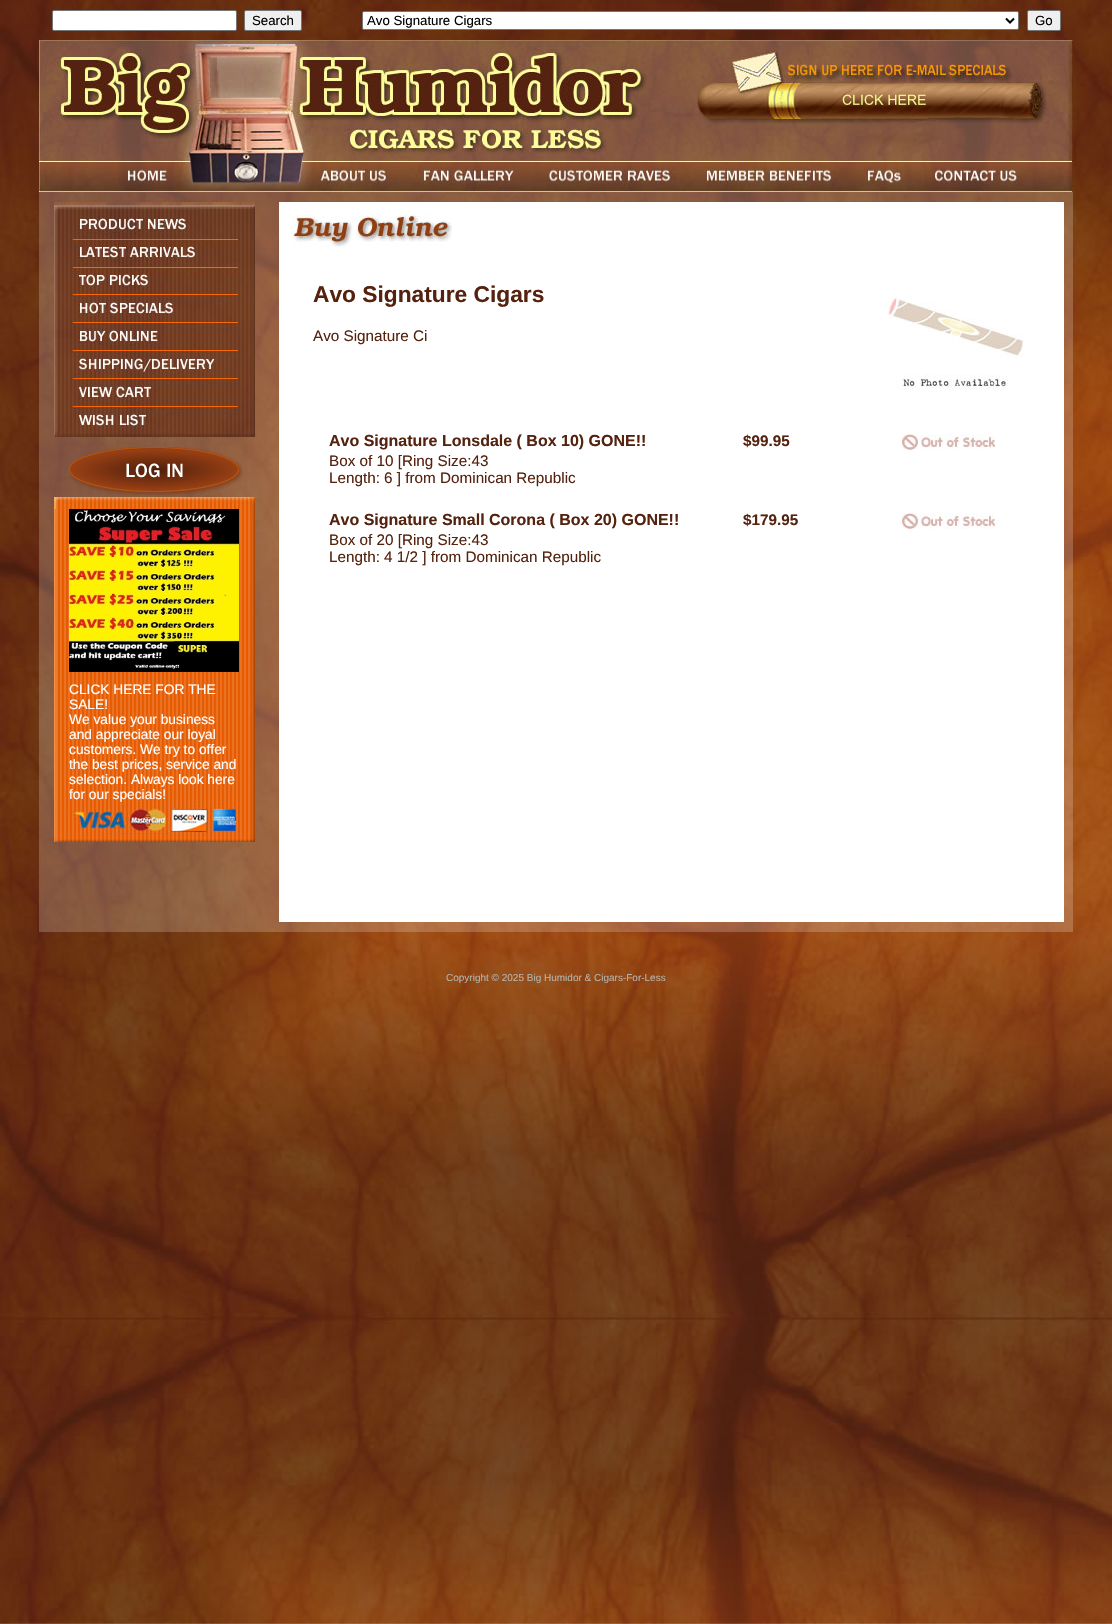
static SkFont makeFont(const char* family, int weight, float size, bool italic = false) {
  SkFontStyle style(weight, SkFontStyle::kNormal_Width,
    italic ? SkFontStyle::kItalic_Slant : SkFontStyle::kUpright_Slant);
  SkFont result(fontMgr->matchFamilyStyle(family, style), size);
  result.setSubpixel(true);
  return result;
}

static void text(SkCanvas* c, const char* s, float x, float y, const SkFont& font, SkColor color) {
  SkPaint ink(SkColor4f::FromColor(color));
  ink.setAntiAlias(true);
  c->drawString(s, x, y, font, ink);
}

static void box(SkCanvas* c, float l, float t, float r, float b, SkColor color) {
  SkPaint ink(SkColor4f::FromColor(color));
  ink.setAntiAlias(true);
  c->drawRect(SkRect::MakeLTRB(l, t, r, b), ink);
}

static void picture(SkCanvas* c, const char* path, float l, float t, float r, float b) {
  auto image = SkImages::DeferredFromEncodedData(SkData::MakeFromFileName(path));
  c->drawImageRect(image, SkRect::MakeLTRB(l, t, r, b), SkSamplingOptions());
}

void draw(SkCanvas* c) {
  SkPaint paint;
  paint.setAntiAlias(true);
  c->clear(0xffffffff);
  picture(c, "img_01.png", 0, 0, 1112, 1624);
  paint.setColor(0xffffffff);
  c->drawRoundRect(SkRect::MakeLTRB(52.5f, 10.5f, 236.5f, 30.5f), 1.5f, 1.5f, paint);
  paint.setStyle(SkPaint::kStroke_Style);
  paint.setStrokeWidth(1);
  paint.setColor(0xff767676);
  c->drawRoundRect(SkRect::MakeLTRB(52.5f, 10.5f, 236.5f, 30.5f), 1.5f, 1.5f, paint);
  paint.setStyle(SkPaint::kFill_Style);
  paint.setColor(0xffefefef);
  c->drawRoundRect(SkRect::MakeLTRB(244.5f, 10.5f, 301.5f, 30.5f), 1.5f, 1.5f, paint);
  paint.setStyle(SkPaint::kStroke_Style);
  paint.setColor(0xff767676);
  c->drawRoundRect(SkRect::MakeLTRB(244.5f, 10.5f, 301.5f, 30.5f), 1.5f, 1.5f, paint);
  SkFont face1 = makeFont("Liberation Sans", 400, 13.25f);
  text(c, "Search", 252, 25, face1, 0xff000000);
  paint.setStyle(SkPaint::kFill_Style);
  paint.setColor(0xffffffff);
  c->drawRoundRect(SkRect::MakeLTRB(362.5f, 11.5f, 1018.5f, 29.5f), 1.5f, 1.5f, paint);
  paint.setStyle(SkPaint::kStroke_Style);
  paint.setColor(0xff767676);
  c->drawRoundRect(SkRect::MakeLTRB(362.5f, 11.5f, 1018.5f, 29.5f), 1.5f, 1.5f, paint);
  paint.setStrokeWidth(2);
  paint.setColor(0xff000000);
  c->drawPath(SkPathBuilder().moveTo(1006, 18.5f).lineTo(1010, 22.5f).lineTo(1014, 18.5f).detach(), paint);
  text(c, "Avo Signature Cigars", 367, 25, face1, 0xff000000);
  paint.setStyle(SkPaint::kFill_Style);
  paint.setColor(0xffefefef);
  c->drawRoundRect(SkRect::MakeLTRB(1027.5f, 10.5f, 1060.5f, 30.5f), 1.5f, 1.5f, paint);
  paint.setStyle(SkPaint::kStroke_Style);
  paint.setStrokeWidth(1);
  paint.setColor(0xff767676);
  c->drawRoundRect(SkRect::MakeLTRB(1027.5f, 10.5f, 1060.5f, 30.5f), 1.5f, 1.5f, paint);
  text(c, "Go", 1035, 25, face1, 0xff000000);
  picture(c, "img_02.png", 39, 40, 678, 162);
  picture(c, "img_03.png", 678, 40, 1073, 162);
  picture(c, "img_04.png", 39, 162, 179, 192);
  picture(c, "img_05.png", 179, 162, 316, 192);
  picture(c, "img_06.png", 316, 162, 402, 192);
  picture(c, "img_07.png", 402, 162, 533, 192);
  picture(c, "img_08.png", 533, 162, 690, 192);
  picture(c, "img_09.png", 690, 162, 848, 192);
  picture(c, "img_10.png", 848, 162, 919, 192);
  picture(c, "img_11.png", 919, 162, 1073, 192);
  picture(c, "img_12.png", 39, 192, 1073, 932);
  box(c, 279, 202, 1064, 922, 0xffffffff);
  picture(c, "img_13.png", 292, 215, 452, 247);
  SkFont face2 = makeFont("Liberation Sans", 700, 22.75f);
  text(c, "Avo Signature Cigars", 313, 302, face2, 0xff54220e);
  picture(c, "img_14.png", 888, 296, 1024, 390);
  SkFont face3 = makeFont("Liberation Sans", 400, 15.25f);
  text(c, "Avo Signature Ci", 313, 341, face3, 0xff54220e);
  SkFont face4 = makeFont("Liberation Sans", 700, 16);
  text(c, "Avo Signature Lonsdale ( Box 10) GONE!!", 329, 446, face4, 0xff54220e);
  text(c, "Box of 10 [Ring Size:43", 329, 466, face3, 0xff54220e);
  text(c, "Length: 6 ] from Dominican Republic", 329, 483, face3, 0xff54220e);
  SkFont face5 = makeFont("Liberation Sans", 700, 15.25f);
  text(c, "$99.95", 743, 446, face5, 0xff54220e);
  picture(c, "img_15.png", 902, 434, 995, 450);
  text(c, "Avo Signature Small Corona ( Box 20) GONE!!", 329, 525, face4, 0xff54220e);
  text(c, "Box of 20 [Ring Size:43", 329, 545, face3, 0xff54220e);
  text(c, "Length: 4 1/2 ] from Dominican Republic", 329, 562, face3, 0xff54220e);
  text(c, "$179.95", 743, 525, face5, 0xff54220e);
  picture(c, "img_15.png", 902, 513, 995, 529);
  picture(c, "img_16.png", 54, 202, 255, 239);
  picture(c, "img_17.png", 54, 239, 255, 267);
  picture(c, "img_18.png", 54, 267, 255, 294);
  picture(c, "img_19.png", 54, 294, 255, 322);
  picture(c, "img_20.png", 54, 322, 255, 350);
  picture(c, "img_21.png", 54, 350, 255, 378);
  picture(c, "img_22.png", 54, 378, 255, 406);
  picture(c, "img_23.png", 54, 406, 255, 437);
  picture(c, "img_24.png", 69, 447, 243, 497);
  picture(c, "img_25.png", 54, 509, 255, 802);
  picture(c, "img_26.png", 54, 497, 255, 509);
  picture(c, "img_27.png", 69, 509, 239, 672);
  SkFont face6 = makeFont("Liberation Sans", 400, 13.75f);
  text(c, "CLICK HERE FOR THE", 69, 694, face6, 0xffffffff);
  text(c, "SALE!", 69, 709, face6, 0xffffffff);
  text(c, "We value your business", 69, 724, face6, 0xffffffff);
  text(c, "and appreciate our loyal", 69, 739, face6, 0xffffffff);
  text(c, "customers. We try to offer", 69, 754, face6, 0xffffffff);
  text(c, "the best prices, service and", 69, 769, face6, 0xffffffff);
  text(c, "selection. Always look here", 69, 784, face6, 0xffffffff);
  text(c, "for our specials!", 69, 799, face6, 0xffffffff);
  picture(c, "img_28.png", 54, 802, 255, 842);
  SkFont face7 = makeFont("Liberation Sans", 400, 10);
  text(c, "Copyright © 2025 Big Humidor & Cigars-For-Less", 446, 981, face7, 0xffb5b3ab);
}
